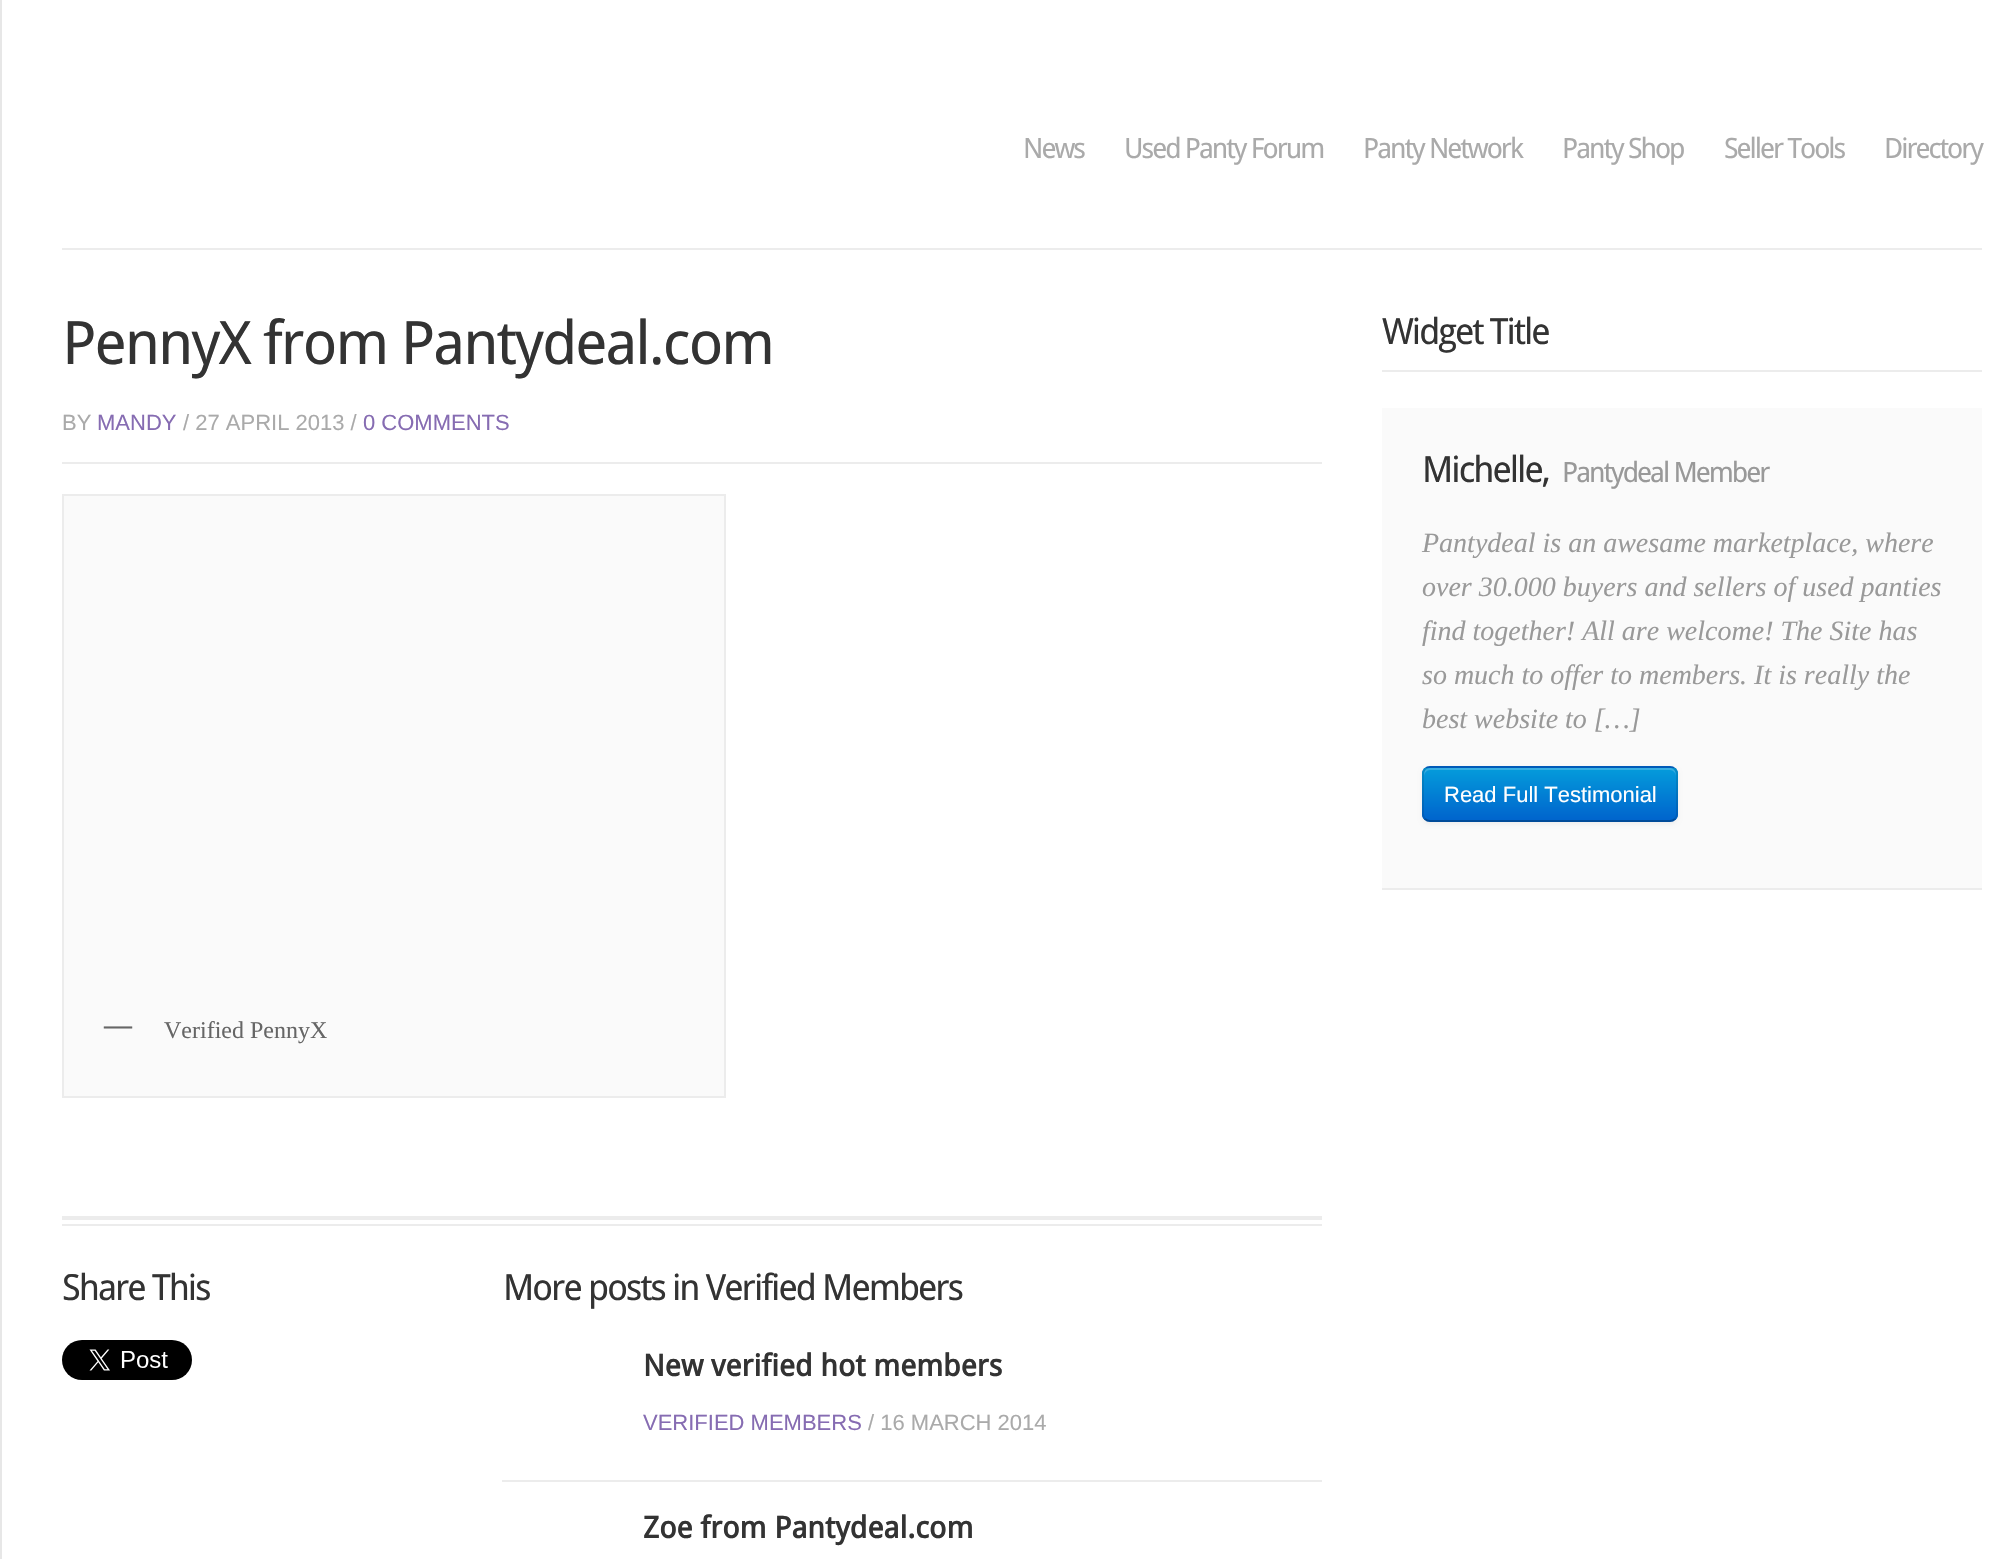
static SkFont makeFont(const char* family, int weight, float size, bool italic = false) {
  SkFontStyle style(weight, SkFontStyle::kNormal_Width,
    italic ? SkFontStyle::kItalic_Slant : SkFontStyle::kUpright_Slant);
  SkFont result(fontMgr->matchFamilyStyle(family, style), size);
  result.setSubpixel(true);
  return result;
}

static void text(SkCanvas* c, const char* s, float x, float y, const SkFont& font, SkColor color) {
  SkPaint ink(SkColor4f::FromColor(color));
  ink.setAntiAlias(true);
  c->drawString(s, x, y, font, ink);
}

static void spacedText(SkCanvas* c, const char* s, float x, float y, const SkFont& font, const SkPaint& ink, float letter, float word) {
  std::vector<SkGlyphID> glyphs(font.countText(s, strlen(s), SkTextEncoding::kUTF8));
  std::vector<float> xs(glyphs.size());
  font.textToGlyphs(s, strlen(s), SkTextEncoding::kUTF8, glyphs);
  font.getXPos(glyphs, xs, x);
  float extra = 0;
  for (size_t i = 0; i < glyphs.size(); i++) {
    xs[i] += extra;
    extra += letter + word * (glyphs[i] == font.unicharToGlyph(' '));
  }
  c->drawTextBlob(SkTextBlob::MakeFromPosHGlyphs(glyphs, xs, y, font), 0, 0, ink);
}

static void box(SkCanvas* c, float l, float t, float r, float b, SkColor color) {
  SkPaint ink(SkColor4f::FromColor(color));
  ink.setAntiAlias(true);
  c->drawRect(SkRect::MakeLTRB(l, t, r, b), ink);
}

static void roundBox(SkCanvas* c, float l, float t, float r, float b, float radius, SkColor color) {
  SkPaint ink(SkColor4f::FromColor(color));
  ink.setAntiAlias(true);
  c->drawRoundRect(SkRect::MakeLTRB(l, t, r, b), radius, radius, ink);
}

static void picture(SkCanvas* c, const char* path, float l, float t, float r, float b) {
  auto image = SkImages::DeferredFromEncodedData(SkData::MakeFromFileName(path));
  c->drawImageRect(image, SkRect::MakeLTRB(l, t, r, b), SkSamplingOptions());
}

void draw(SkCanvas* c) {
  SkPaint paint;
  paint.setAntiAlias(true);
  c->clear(0xffffffff);
  box(c, 0, 0, 2, 1559, 0xffe7e7e7);
  box(c, 62, 248, 1982, 250, 0xffececec);
  SkFont face1 = makeFont("Droid Sans", 400, 28);
  paint.setColor(0xffaaaaaa);
  spacedText(c, "News", 1023, 158, face1, paint, -2, 0);
  spacedText(c, "Used Panty Forum", 1124, 158, face1, paint, -2, 0);
  spacedText(c, "Panty Network", 1363, 158, face1, paint, -2, 0);
  spacedText(c, "Panty Shop", 1562, 158, face1, paint, -2, 0);
  spacedText(c, "Seller Tools", 1724, 158, face1, paint, -2, 0);
  spacedText(c, "Directory", 1884, 158, face1, paint, -2, 0);
  SkFont face2 = makeFont("Droid Sans", 400, 60);
  paint.setColor(0xff333333);
  spacedText(c, "PennyX from Pantydeal.com", 62, 364, face2, paint, -2, 0);
  box(c, 62, 462, 1322, 464, 0xffececec);
  SkFont face3 = makeFont("Liberation Sans", 400, 22);
  text(c, "BY", 62, 430, face3, 0xffaaaaaa);
  text(c, "MANDY", 97, 430, face3, 0xff866cb2);
  text(c, "/ 27 APRIL 2013 /", 183, 430, face3, 0xffaaaaaa);
  text(c, "0 COMMENTS", 363, 430, face3, 0xff866cb2);
  paint.setColor(0xfffafafa);
  c->drawRect(SkRect::MakeLTRB(63, 495, 725, 1097), paint);
  paint.setStyle(SkPaint::kStroke_Style);
  paint.setStrokeWidth(2);
  paint.setColor(0xffececec);
  c->drawRect(SkRect::MakeLTRB(63, 495, 725, 1097), paint);
  SkFont face4 = makeFont("Liberation Serif", 700, 28);
  text(c, "—", 104, 1034, face4, 0xff666666);
  SkFont face5 = makeFont("Liberation Serif", 400, 24);
  text(c, "Verified PennyX", 164, 1038, face5, 0xff666666);
  box(c, 62, 1216, 1322, 1220, 0xffececec);
  box(c, 62, 1224, 1322, 1226, 0xffececec);
  SkFont face6 = makeFont("Droid Sans", 400, 36);
  paint.setStyle(SkPaint::kFill_Style);
  paint.setColor(0xff333333);
  spacedText(c, "Share This", 62, 1300, face6, paint, -2, 0);
  picture(c, "img_01.png", 62, 1340, 192, 1380);
  spacedText(c, "More posts in Verified Members", 503, 1300, face6, paint, -2, 0);
  box(c, 502, 1480, 1322, 1482, 0xffececec);
  SkFont face7 = makeFont("Droid Sans", 700, 30);
  text(c, "New verified hot members", 643, 1376, face7, 0xff333333);
  text(c, "VERIFIED MEMBERS", 643, 1430, face3, 0xff866cb2);
  text(c, "/ 16 MARCH 2014", 868, 1430, face3, 0xffaaaaaa);
  text(c, "Zoe from Pantydeal.com", 643, 1538, face7, 0xff333333);
  box(c, 1382, 370, 1982, 372, 0xffececec);
  spacedText(c, "Widget Title", 1382, 344, face6, paint, -2, 0);
  box(c, 1382, 408, 1982, 888, 0xfffafafa);
  box(c, 1382, 888, 1982, 890, 0xffececec);
  spacedText(c, "Michelle,", 1422, 482, face6, paint, -2, 0);
  paint.setColor(0xff999999);
  spacedText(c, "Pantydeal Member", 1562, 482, face1, paint, -2, 0);
  SkFont face8 = makeFont("Liberation Serif", 400, 28, true);
  text(c, "Pantydeal is an awesame marketplace, where", 1422, 552, face8, 0xff999999);
  text(c, "over 30.000 buyers and sellers of used panties", 1422, 596, face8, 0xff999999);
  text(c, "find together! All are welcome! The Site has", 1422, 640, face8, 0xff999999);
  text(c, "so much to offer to members. It is really the", 1422, 684, face8, 0xff999999);
  text(c, "best website to […]", 1422, 728, face8, 0xff999999);
  paint.setColor(0x0d000000);
  paint.setMaskFilter(SkMaskFilter::MakeBlur(kNormal_SkBlurStyle, 2));
  c->drawRoundRect(SkRect::MakeLTRB(1422, 768, 1678, 824), 8, 8, paint);
  paint.setMaskFilter(nullptr);
  roundBox(c, 1422, 766, 1678, 822, 8, 0xff0064cd);
  c->save();
  c->clipPath(SkPathBuilder().moveTo(1430, 766).lineTo(1670, 766).cubicTo(1674.5f, 766, 1678, 769.5f, 1678, 774).lineTo(1678, 814).cubicTo(1678, 818.5f, 1674.5f, 822, 1670, 822).lineTo(1430, 822).cubicTo(1425.5f, 822, 1422, 818.5f, 1422, 814).lineTo(1422, 774).cubicTo(1422, 769.5f, 1425.5f, 766, 1430, 766).close().detach(), true);
  {
    const SkColor colors[] = {0xff049cdb, 0xff0064cd};
    const float stops[] = {0, 1};
    const SkPoint ends[] = {{1550, 768}, {1550, 820}};
    paint.setShader(SkGradientShader::MakeLinear(ends, colors, stops, 2, SkTileMode::kClamp));
    paint.setAlpha(255);
  }
  c->drawRect(SkRect::MakeLTRB(1422, 768, 1678, 820), paint);
  c->restore();
  paint.setShader(nullptr);
  paint.setColor(0x33ffffff);
  c->drawPath(SkPathBuilder().moveTo(1430, 770).lineTo(1670, 770).cubicTo(1673, 770, 1676, 773, 1676, 776).cubicTo(1676, 773, 1675, 769, 1671, 768).lineTo(1430, 768).cubicTo(1425, 768, 1424, 772, 1424, 776).cubicTo(1424, 773, 1427, 770, 1430, 770).close().detach(), paint);
  paint.setStyle(SkPaint::kStroke_Style);
  paint.setColor(0x40000000);
  c->drawPath(SkPathBuilder().moveTo(1675, 819).cubicTo(1673.5f, 820.5f, 1672, 821, 1670, 821).lineTo(1430, 821).cubicTo(1428, 821, 1426.5f, 820.5f, 1425, 819).detach(), paint);
  paint.setColor(0x1a000000);
  c->drawPath(SkPathBuilder().moveTo(1425, 819).cubicTo(1423.5f, 817.5f, 1423, 816, 1423, 814).lineTo(1423, 774).cubicTo(1423, 772, 1423.5f, 770.5f, 1425, 769).cubicTo(1426.5f, 767.5f, 1428, 767, 1430, 767).lineTo(1670, 767).cubicTo(1672, 767, 1673.5f, 767.5f, 1675, 769).cubicTo(1676.5f, 770.5f, 1677, 772, 1677, 774).lineTo(1677, 814).cubicTo(1677, 816, 1676.5f, 817.5f, 1675, 819).detach(), paint);
  text(c, "Read Full Testimonial", 1444, 802, face3, 0xffffffff);
}
